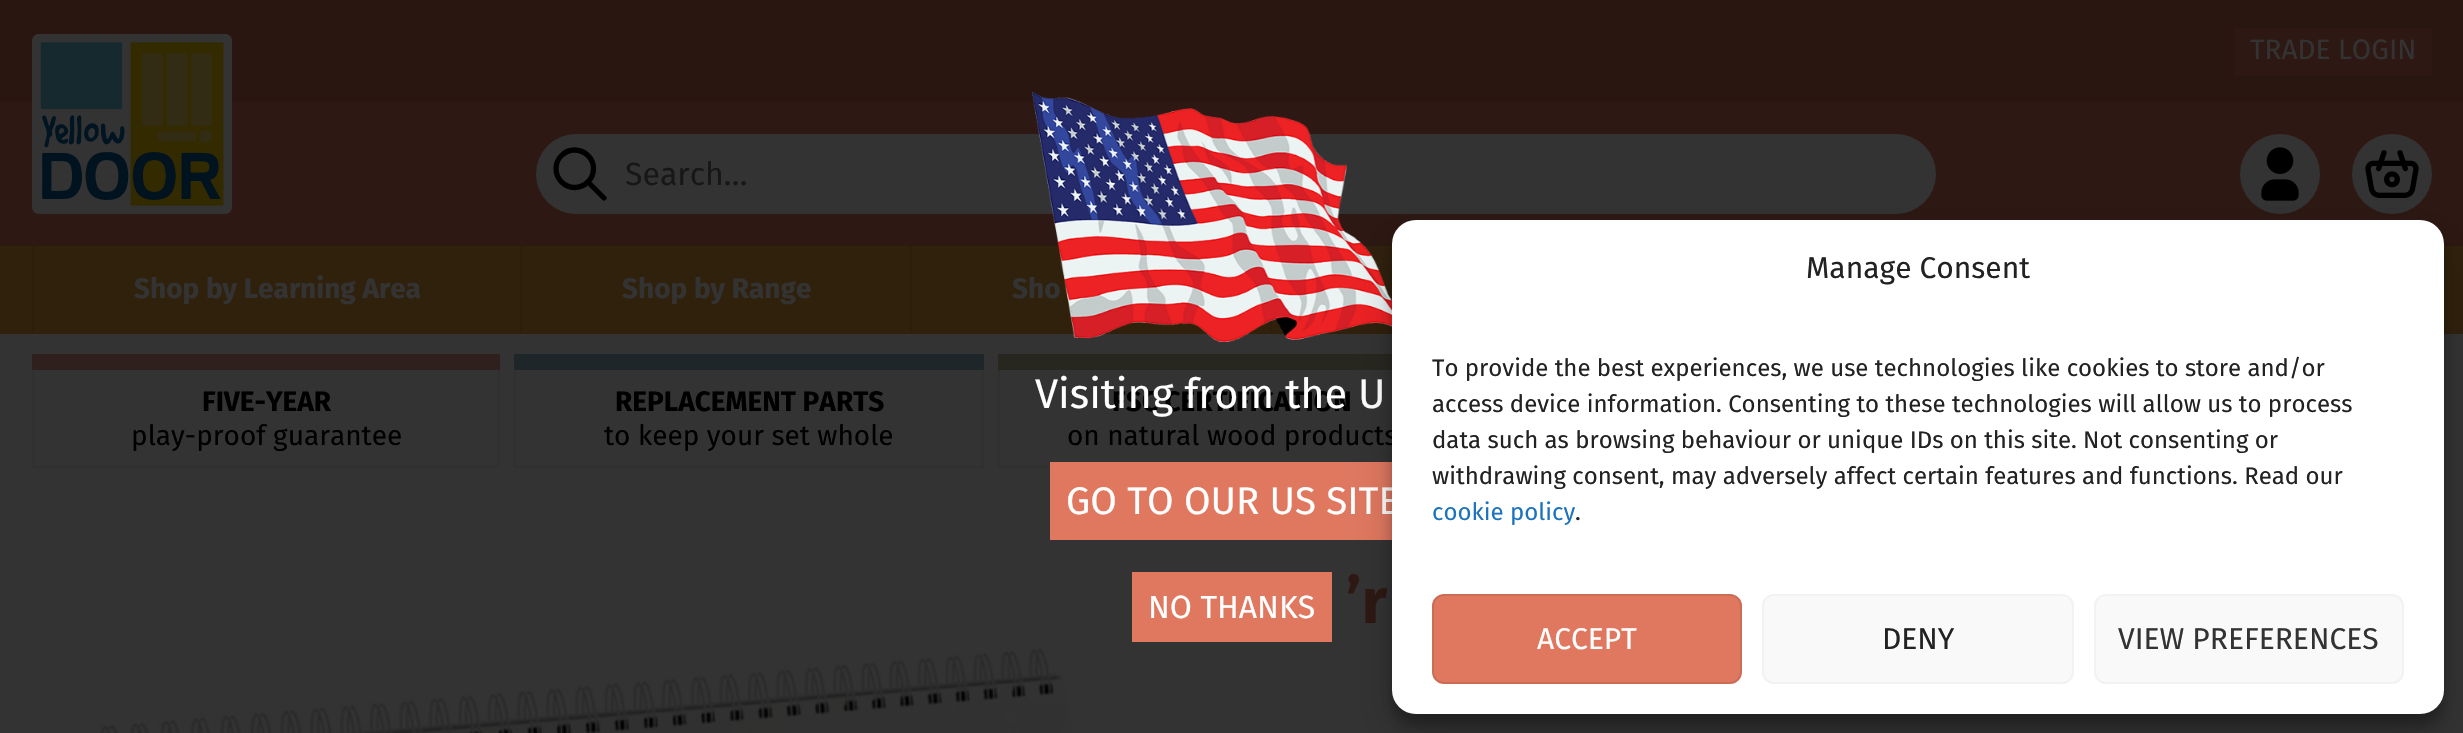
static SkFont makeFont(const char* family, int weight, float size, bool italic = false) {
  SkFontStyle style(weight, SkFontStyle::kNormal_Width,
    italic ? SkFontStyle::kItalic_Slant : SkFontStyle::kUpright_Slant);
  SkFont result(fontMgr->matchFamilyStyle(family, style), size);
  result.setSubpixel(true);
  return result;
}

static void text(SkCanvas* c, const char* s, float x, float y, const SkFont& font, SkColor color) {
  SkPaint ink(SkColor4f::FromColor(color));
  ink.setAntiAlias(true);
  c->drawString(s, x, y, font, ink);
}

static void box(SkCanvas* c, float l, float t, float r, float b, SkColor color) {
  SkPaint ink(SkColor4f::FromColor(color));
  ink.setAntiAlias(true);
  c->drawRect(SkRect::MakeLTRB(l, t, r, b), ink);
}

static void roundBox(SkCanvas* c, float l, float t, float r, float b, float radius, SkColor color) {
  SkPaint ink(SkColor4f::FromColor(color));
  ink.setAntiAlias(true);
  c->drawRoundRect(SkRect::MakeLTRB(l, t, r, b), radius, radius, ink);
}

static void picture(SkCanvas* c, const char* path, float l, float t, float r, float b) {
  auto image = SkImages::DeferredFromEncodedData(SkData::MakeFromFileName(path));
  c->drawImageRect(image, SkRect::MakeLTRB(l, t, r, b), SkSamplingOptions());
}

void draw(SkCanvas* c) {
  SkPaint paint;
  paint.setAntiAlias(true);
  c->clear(0xff333333);
  box(c, 0, 0, 2463, 102, 0xff291611);
  box(c, 0, 102, 2463, 246, 0xff2d1813);
  picture(c, "img_01.png", 32, 34, 232, 214);
  box(c, 2234, 28, 2432, 76, 0xff2d1813);
  SkFont face1 = makeFont("Fira Sans", 400, 28);
  text(c, "TRADE LOGIN", 2250, 59, face1, 0xff333333);
  roundBox(c, 536, 134, 1936, 214, 40, 0xff333333);
  paint.setStyle(SkPaint::kStroke_Style);
  paint.setStrokeWidth(5.3f);
  paint.setStrokeCap(SkPaint::kRound_Cap);
  paint.setStrokeJoin(SkPaint::kRound_Join);
  paint.setColor(0xff000000);
  c->drawPath(SkPathBuilder().moveTo(556, 168.5f).cubicTo(556, 179, 564.5f, 187.5f, 574.5f, 187.5f).cubicTo(585, 187.5f, 593.5f, 179, 593.5f, 168.5f).cubicTo(593.5f, 158.5f, 585, 150, 574.5f, 150).cubicTo(564.5f, 150, 556, 158.5f, 556, 168.5f).moveTo(604, 198).lineTo(588, 182).detach(), paint);
  SkFont face2 = makeFont("Fira Sans", 400, 32);
  text(c, "Search…", 625, 185, face2, 0xff171717);
  paint.setStyle(SkPaint::kFill_Style);
  paint.setColor(0xff333333);
  c->drawCircle(2280, 174, 40, paint);
  picture(c, "img_02.png", 2261, 147, 2299, 201);
  c->drawCircle(2392, 174, 40, paint);
  picture(c, "img_03.png", 2365, 150, 2419, 198);
  box(c, 0, 246, 2463, 334, 0xff30210d);
  box(c, 32, 246, 34, 334, 0xff2b1e0b);
  SkFont face3 = makeFont("Fira Sans", 700, 28);
  text(c, "Shop by Learning Area", 134, 298, face3, 0xff333333);
  box(c, 520, 246, 522, 334, 0xff2b1e0b);
  text(c, "Shop by Range", 622, 298, face3, 0xff333333);
  box(c, 910, 246, 912, 334, 0xff2b1e0b);
  text(c, "Sho", 1012, 298, face3, 0xff333333);
  box(c, 1270, 319, 1272, 334, 0xff2b1e0b);
  box(c, 32, 354, 500, 370, 0xff2f201d);
  box(c, 498, 370, 500, 468, 0xff303030);
  box(c, 32, 466, 500, 468, 0xff303030);
  box(c, 32, 370, 34, 468, 0xff303030);
  text(c, "FIVE-YEAR", 202, 411, face3, 0xff000000);
  text(c, "play-proof guarantee", 131, 445, face1, 0xff000000);
  box(c, 514, 354, 984, 370, 0xff1f2629);
  box(c, 982, 370, 984, 468, 0xff303030);
  box(c, 514, 466, 984, 468, 0xff303030);
  box(c, 514, 370, 516, 468, 0xff303030);
  text(c, "REPLACEMENT PARTS", 615, 411, face3, 0xff000000);
  text(c, "to keep your set whole", 604, 445, face1, 0xff000000);
  box(c, 998, 354, 1392, 370, 0xff28271f);
  box(c, 998, 466, 1050, 468, 0xff303030);
  box(c, 998, 370, 1000, 468, 0xff303030);
  text(c, "FSC CERTIFICATION", 1112, 411, face3, 0xff000000);
  text(c, "on natural wood products", 1067, 445, face1, 0xff000000);
  SkFont face4 = makeFont("Fira Sans", 700, 64);
  text(c, "’r", 1346, 623, face4, 0xff2d1813);
  picture(c, "img_04.png", 97, 648, 1071, 733);
  picture(c, "img_05.png", 1032, 92, 1392, 342);
  SkFont face5 = makeFont("Fira Sans", 400, 41.5f);
  text(c, "Visiting from the U", 1035, 408, face5, 0xffffffff);
  box(c, 1050, 462, 1392, 540, 0xffe07860);
  SkFont face6 = makeFont("Fira Sans", 400, 38.5f);
  text(c, "GO TO OUR US SITE", 1066, 514, face6, 0xffffffff);
  box(c, 1132, 572, 1332, 642, 0xffe07860);
  text(c, "NO THANKS", 1148, 618, face2, 0xffffffff);
  paint.setColor(0x3b000000);
  paint.setMaskFilter(SkMaskFilter::MakeBlur(kNormal_SkBlurStyle, 6));
  c->drawRoundRect(SkRect::MakeLTRB(1392, 232, 2444, 726), 24, 24, paint);
  paint.setMaskFilter(nullptr);
  paint.setColor(0x30000000);
  paint.setMaskFilter(SkMaskFilter::MakeBlur(kNormal_SkBlurStyle, 20));
  c->drawRoundRect(SkRect::MakeLTRB(1392, 240, 2444, 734), 24, 24, paint);
  paint.setMaskFilter(nullptr);
  roundBox(c, 1392, 220, 2444, 714, 24, 0xffffffff);
  SkFont face7 = makeFont("Fira Sans", 400, 30);
  text(c, "Manage Consent", 1806, 278, face7, 0xff222222);
  SkFont face8 = makeFont("Fira Sans", 400, 24);
  text(c, "To provide the best experiences, we use technologies like cookies to store and/or", 1432, 376, face8, 0xff222222);
  text(c, "access device information. Consenting to these technologies will allow us to process", 1432, 412, face8, 0xff222222);
  text(c, "data such as browsing behaviour or unique IDs on this site. Not consenting or", 1432, 448, face8, 0xff222222);
  text(c, "withdrawing consent, may adversely affect certain features and functions. Read our", 1432, 484, face8, 0xff222222);
  text(c, "cookie policy", 1432, 520, face8, 0xff1e73be);
  text(c, ".", 1575, 520, face8, 0xff222222);
  paint.setColor(0xffe07860);
  c->drawRoundRect(SkRect::MakeLTRB(1433, 595, 1741, 683), 11, 11, paint);
  paint.setStyle(SkPaint::kStroke_Style);
  paint.setStrokeWidth(2);
  paint.setStrokeCap(SkPaint::kButt_Cap);
  paint.setStrokeJoin(SkPaint::kMiter_Join);
  paint.setColor(0xffcb6c56);
  c->drawRoundRect(SkRect::MakeLTRB(1433, 595, 1741, 683), 11, 11, paint);
  text(c, "ACCEPT", 1537, 649, face7, 0xffffffff);
  paint.setStyle(SkPaint::kFill_Style);
  paint.setColor(0xfff9f9f9);
  c->drawRoundRect(SkRect::MakeLTRB(1763, 595, 2073, 683), 11, 11, paint);
  paint.setStyle(SkPaint::kStroke_Style);
  paint.setColor(0xfff2f2f2);
  c->drawRoundRect(SkRect::MakeLTRB(1763, 595, 2073, 683), 11, 11, paint);
  text(c, "DENY", 1882, 649, face7, 0xff222222);
  paint.setStyle(SkPaint::kFill_Style);
  paint.setColor(0xfff9f9f9);
  c->drawRoundRect(SkRect::MakeLTRB(2095, 595, 2403, 683), 11, 11, paint);
  paint.setStyle(SkPaint::kStroke_Style);
  paint.setColor(0xfff2f2f2);
  c->drawRoundRect(SkRect::MakeLTRB(2095, 595, 2403, 683), 11, 11, paint);
  text(c, "VIEW PREFERENCES", 2118, 649, face7, 0xff333333);
}
